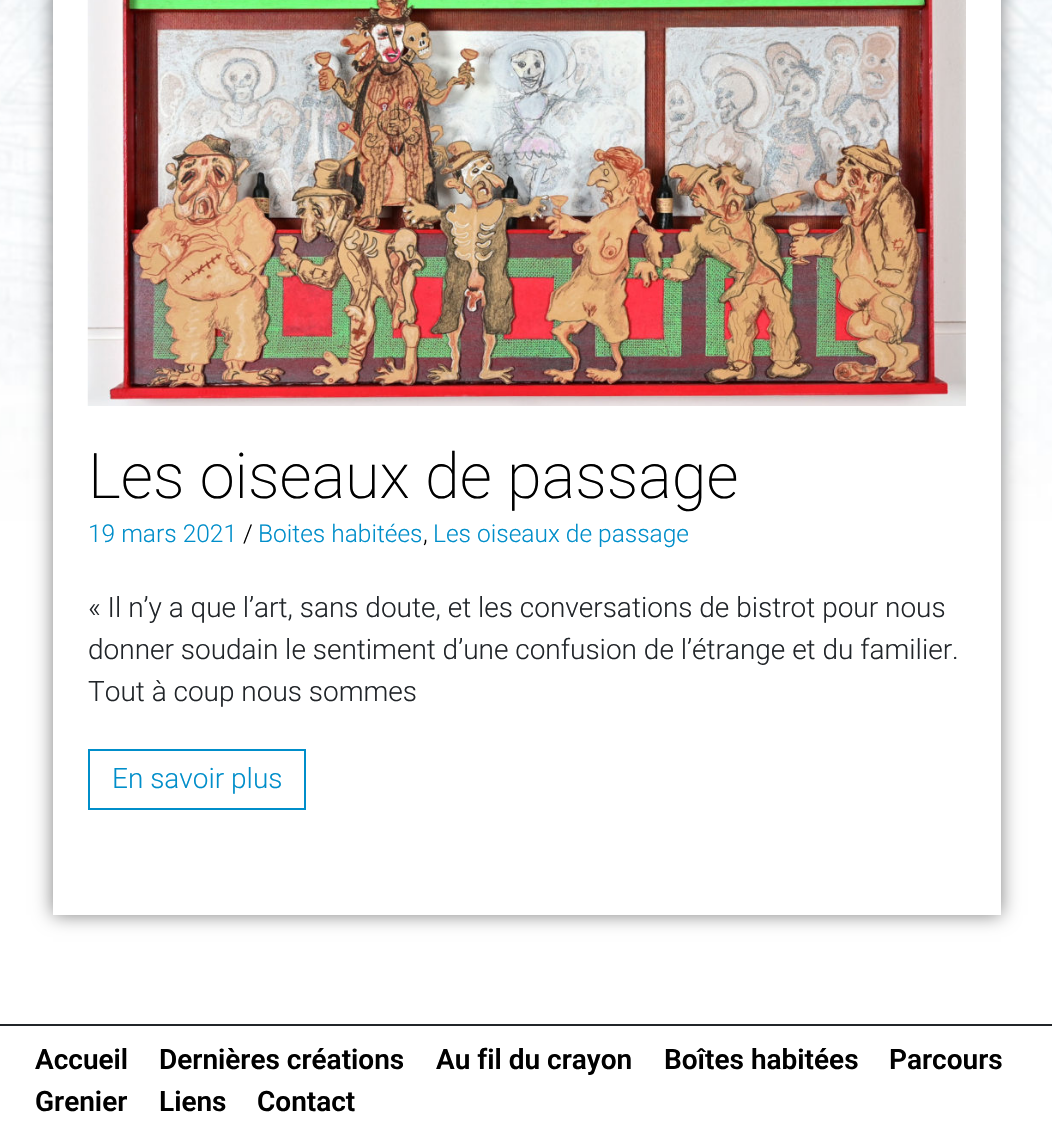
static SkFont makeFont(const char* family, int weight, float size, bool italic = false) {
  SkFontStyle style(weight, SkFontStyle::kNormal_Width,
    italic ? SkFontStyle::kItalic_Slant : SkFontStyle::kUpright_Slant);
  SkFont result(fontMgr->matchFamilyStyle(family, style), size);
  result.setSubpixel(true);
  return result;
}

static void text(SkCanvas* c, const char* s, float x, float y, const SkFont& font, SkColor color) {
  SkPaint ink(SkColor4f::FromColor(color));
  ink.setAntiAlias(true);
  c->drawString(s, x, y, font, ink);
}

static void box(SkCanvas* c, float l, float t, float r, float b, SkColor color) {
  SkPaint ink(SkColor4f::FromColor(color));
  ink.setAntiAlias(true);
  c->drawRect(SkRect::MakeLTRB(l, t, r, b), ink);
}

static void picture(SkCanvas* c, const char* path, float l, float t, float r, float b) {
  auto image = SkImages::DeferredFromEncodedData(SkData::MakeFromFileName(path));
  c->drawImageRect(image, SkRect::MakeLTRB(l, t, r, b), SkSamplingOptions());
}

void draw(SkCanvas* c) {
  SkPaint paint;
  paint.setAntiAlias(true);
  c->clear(0xffffffff);
  picture(c, "img_01.png", 0, 0, 1052, 521);
  paint.setColor(0x80000000);
  paint.setMaskFilter(SkMaskFilter::MakeBlur(kNormal_SkBlurStyle, 9));
  c->drawRect(SkRect::MakeLTRB(53, -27, 1001, 915), paint);
  paint.setMaskFilter(nullptr);
  box(c, 53, 0, 1001, 915, 0xffffffff);
  picture(c, "img_02.png", 87, 0, 966, 406);
  SkFont face1 = makeFont("Roboto", 200, 63);
  text(c, "Les oiseaux de passage", 88, 498, face1, 0xff000000);
  SkFont face2 = makeFont("Roboto", 300, 24.5f);
  text(c, "19 mars 2021", 88, 542, face2, 0xff008eca);
  text(c, "/", 243, 542, face2, 0xff000000);
  text(c, "Boites habitées", 258, 542, face2, 0xff008eca);
  text(c, ",", 423, 542, face2, 0xff000000);
  text(c, "Les oiseaux de passage", 433, 542, face2, 0xff008eca);
  SkFont face3 = makeFont("Roboto", 300, 28);
  text(c, "« Il n’y a que l’art, sans doute, et les conversations de bistrot pour nous", 88, 617, face3, 0xff212529);
  text(c, "donner soudain le sentiment d’une confusion de l’étrange et du familier.", 88, 659, face3, 0xff212529);
  text(c, "Tout à coup nous sommes", 88, 701, face3, 0xff212529);
  paint.setStyle(SkPaint::kStroke_Style);
  paint.setStrokeWidth(2);
  paint.setColor(0xff008eca);
  c->drawRect(SkRect::MakeLTRB(89, 750, 305, 809), paint);
  text(c, "En savoir plus", 112, 788, face3, 0xff008eca);
  box(c, 0, 1024, 1052, 1026, 0xff212529);
  SkFont face4 = makeFont("Roboto", 600, 28);
  text(c, "Accueil", 35, 1069, face4, 0xff000000);
  text(c, "Dernières créations", 159, 1069, face4, 0xff000000);
  text(c, "Au fil du crayon", 436, 1069, face4, 0xff000000);
  text(c, "Boîtes habitées", 664, 1069, face4, 0xff000000);
  text(c, "Parcours", 889, 1069, face4, 0xff000000);
  text(c, "Grenier", 35, 1111, face4, 0xff000000);
  text(c, "Liens", 159, 1111, face4, 0xff000000);
  text(c, "Contact", 257, 1111, face4, 0xff000000);
}
